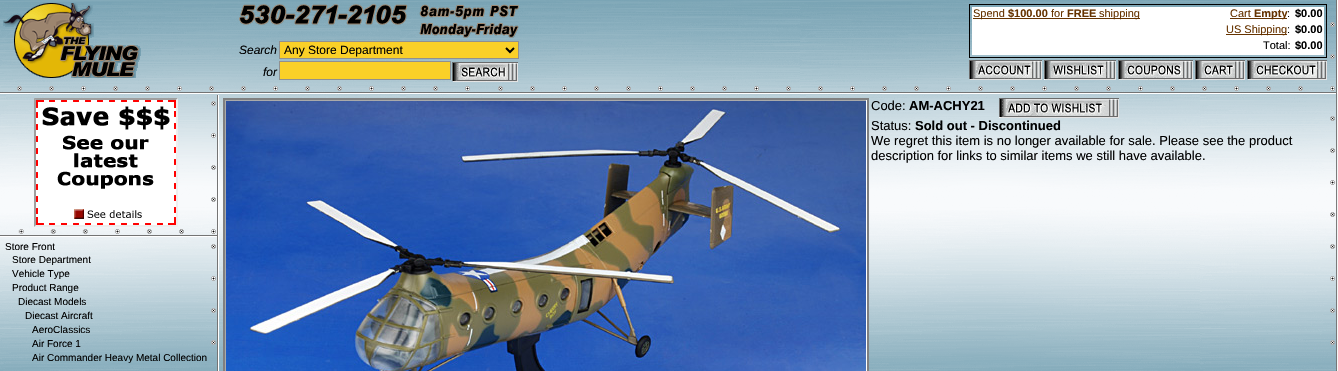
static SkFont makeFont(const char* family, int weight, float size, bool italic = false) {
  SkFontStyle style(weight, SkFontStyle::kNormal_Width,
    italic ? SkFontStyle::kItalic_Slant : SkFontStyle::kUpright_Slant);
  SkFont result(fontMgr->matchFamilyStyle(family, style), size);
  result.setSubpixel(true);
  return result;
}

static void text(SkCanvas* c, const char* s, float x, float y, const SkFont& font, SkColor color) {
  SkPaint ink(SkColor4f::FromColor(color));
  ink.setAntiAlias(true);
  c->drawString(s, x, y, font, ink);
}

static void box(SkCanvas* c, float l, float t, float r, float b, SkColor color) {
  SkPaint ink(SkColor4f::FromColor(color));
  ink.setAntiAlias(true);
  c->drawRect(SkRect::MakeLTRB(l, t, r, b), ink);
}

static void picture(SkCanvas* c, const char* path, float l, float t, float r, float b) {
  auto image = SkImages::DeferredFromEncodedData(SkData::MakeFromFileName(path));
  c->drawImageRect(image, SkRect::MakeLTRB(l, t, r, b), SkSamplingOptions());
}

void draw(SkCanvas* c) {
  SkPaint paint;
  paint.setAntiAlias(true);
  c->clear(0xffffffff);
  picture(c, "img_01.png", 0, 0, 1337, 371);
  picture(c, "img_02.png", 0, 0, 1338, 94);
  picture(c, "img_03.png", 3, 3, 141, 78);
  box(c, 969, 4, 1327, 5, 0xff000000);
  box(c, 1326, 4, 1327, 58, 0xff000000);
  box(c, 969, 57, 1327, 58, 0xff000000);
  box(c, 969, 4, 970, 58, 0xff000000);
  box(c, 972, 7, 1324, 55, 0xffffffff);
  box(c, 973, 18, 1140, 19, 0xff663300);
  SkFont face1 = makeFont("Liberation Sans", 400, 11);
  text(c, "Spend", 973, 17, face1, 0xff663300);
  SkFont face2 = makeFont("Liberation Sans", 700, 11);
  text(c, "$100.00", 1008, 17, face2, 0xff663300);
  text(c, "for", 1051, 17, face1, 0xff663300);
  text(c, "FREE", 1067, 17, face2, 0xff663300);
  text(c, "shipping", 1099, 17, face1, 0xff663300);
  text(c, "Cart", 1230, 17, face1, 0xff663300);
  box(c, 1230, 18, 1287, 19, 0xff663300);
  text(c, "Empty", 1254, 17, face2, 0xff663300);
  text(c, ":", 1287, 17, face1, 0xff000000);
  text(c, "$0.00", 1295, 17, face2, 0xff000000);
  box(c, 1226, 34, 1287, 35, 0xff663300);
  text(c, "US Shipping", 1226, 33, face1, 0xff663300);
  text(c, ":", 1287, 33, face1, 0xff000000);
  text(c, "$0.00", 1295, 33, face2, 0xff000000);
  text(c, "Total:", 1263, 49, face1, 0xff000000);
  text(c, "$0.00", 1295, 49, face2, 0xff000000);
  picture(c, "img_04.png", 969, 60, 1042, 80);
  picture(c, "img_05.png", 1044, 60, 1116, 80);
  picture(c, "img_06.png", 1118, 60, 1193, 80);
  picture(c, "img_07.png", 1195, 60, 1245, 80);
  picture(c, "img_08.png", 1247, 60, 1327, 80);
  picture(c, "img_09.png", 239, 4, 519, 38);
  SkFont face3 = makeFont("Liberation Sans", 400, 12, true);
  text(c, "Search", 239, 54, face3, 0xff000000);
  paint.setColor(0xfffad028);
  c->drawRect(SkRect::MakeLTRB(279.5f, 41.5f, 518.5f, 58.5f), paint);
  paint.setStyle(SkPaint::kStroke_Style);
  paint.setStrokeWidth(1);
  paint.setColor(0xff909090);
  c->drawRect(SkRect::MakeLTRB(279.5f, 41.5f, 518.5f, 58.5f), paint);
  paint.setStrokeWidth(2);
  paint.setColor(0xff000000);
  c->drawPath(SkPathBuilder().moveTo(506, 48).lineTo(510, 52).lineTo(514, 48).detach(), paint);
  SkFont face4 = makeFont("Liberation Sans", 400, 12);
  text(c, "Any Store Department", 284, 54, face4, 0xff000000);
  text(c, "for", 263, 76, face3, 0xff000000);
  paint.setStyle(SkPaint::kFill_Style);
  paint.setColor(0xfffad028);
  c->drawRect(SkRect::MakeLTRB(279.5f, 61.5f, 450.5f, 79.5f), paint);
  paint.setStyle(SkPaint::kStroke_Style);
  paint.setStrokeWidth(1);
  paint.setColor(0xff909090);
  c->drawRect(SkRect::MakeLTRB(279.5f, 61.5f, 450.5f, 79.5f), paint);
  picture(c, "img_10.png", 452, 62, 518, 82);
  picture(c, "img_11.png", 1330, 94, 1338, 371);
  box(c, 223, 98, 869, 100, 0xff808080);
  box(c, 867, 98, 869, 371, 0xff808080);
  box(c, 223, 98, 225, 371, 0xff808080);
  box(c, 225, 100, 867, 101, 0xffaaaaaa);
  box(c, 866, 100, 867, 371, 0xffffffff);
  box(c, 225, 100, 226, 371, 0xffaaaaaa);
  picture(c, "img_12.png", 226, 101, 866, 371);
  SkFont face5 = makeFont("Liberation Sans", 400, 13);
  text(c, "Code:", 871, 110, face5, 0xff000000);
  SkFont face6 = makeFont("Liberation Sans", 700, 13);
  text(c, "AM-ACHY21", 909, 110, face6, 0xff000000);
  picture(c, "img_13.png", 999, 98, 1119, 118);
  text(c, "Status:", 871, 130, face5, 0xff000000);
  text(c, "Sold out - Discontinued", 915, 130, face6, 0xff000000);
  text(c, "We regret this item is no longer available for sale. Please see the product", 871, 145, face5, 0xff000000);
  text(c, "description for links to similar items we still have available.", 871, 160, face5, 0xff000000);
  picture(c, "img_14.png", 0, 95, 219, 237);
  paint.setStyle(SkPaint::kFill_Style);
  paint.setColor(0xff9f9f9f);
  c->drawPath(SkPathBuilder().moveTo(34, 98).lineTo(178, 98).lineTo(176, 100).lineTo(36, 100).close().detach(), paint);
  paint.setColor(0xffeeeeee);
  c->drawPath(SkPathBuilder().moveTo(178, 98).lineTo(178, 227).lineTo(176, 225).lineTo(176, 100).close().detach(), paint);
  c->drawPath(SkPathBuilder().moveTo(178, 227).lineTo(34, 227).lineTo(36, 225).lineTo(176, 225).close().detach(), paint);
  paint.setColor(0xff9f9f9f);
  c->drawPath(SkPathBuilder().moveTo(34, 227).lineTo(34, 98).lineTo(36, 100).lineTo(36, 225).close().detach(), paint);
  picture(c, "img_15.png", 36, 100, 176, 225);
  picture(c, "img_16.png", 211, 237, 219, 371);
  SkFont face7 = makeFont("Liberation Sans", 400, 10);
  text(c, "Store Front", 5, 250, face7, 0xff000000);
  text(c, "Store Department", 12, 263, face7, 0xff000000);
  text(c, "Vehicle Type", 12, 277, face7, 0xff000000);
  text(c, "Product Range", 12, 291, face7, 0xff000000);
  text(c, "Diecast Models", 18, 305, face7, 0xff000000);
  text(c, "Diecast Aircraft", 25, 319, face7, 0xff000000);
  text(c, "AeroClassics", 32, 333, face7, 0xff000000);
  text(c, "Air Force 1", 32, 347, face7, 0xff000000);
  text(c, "Air Commander Heavy Metal Collection", 32, 361, face7, 0xff000000);
}
